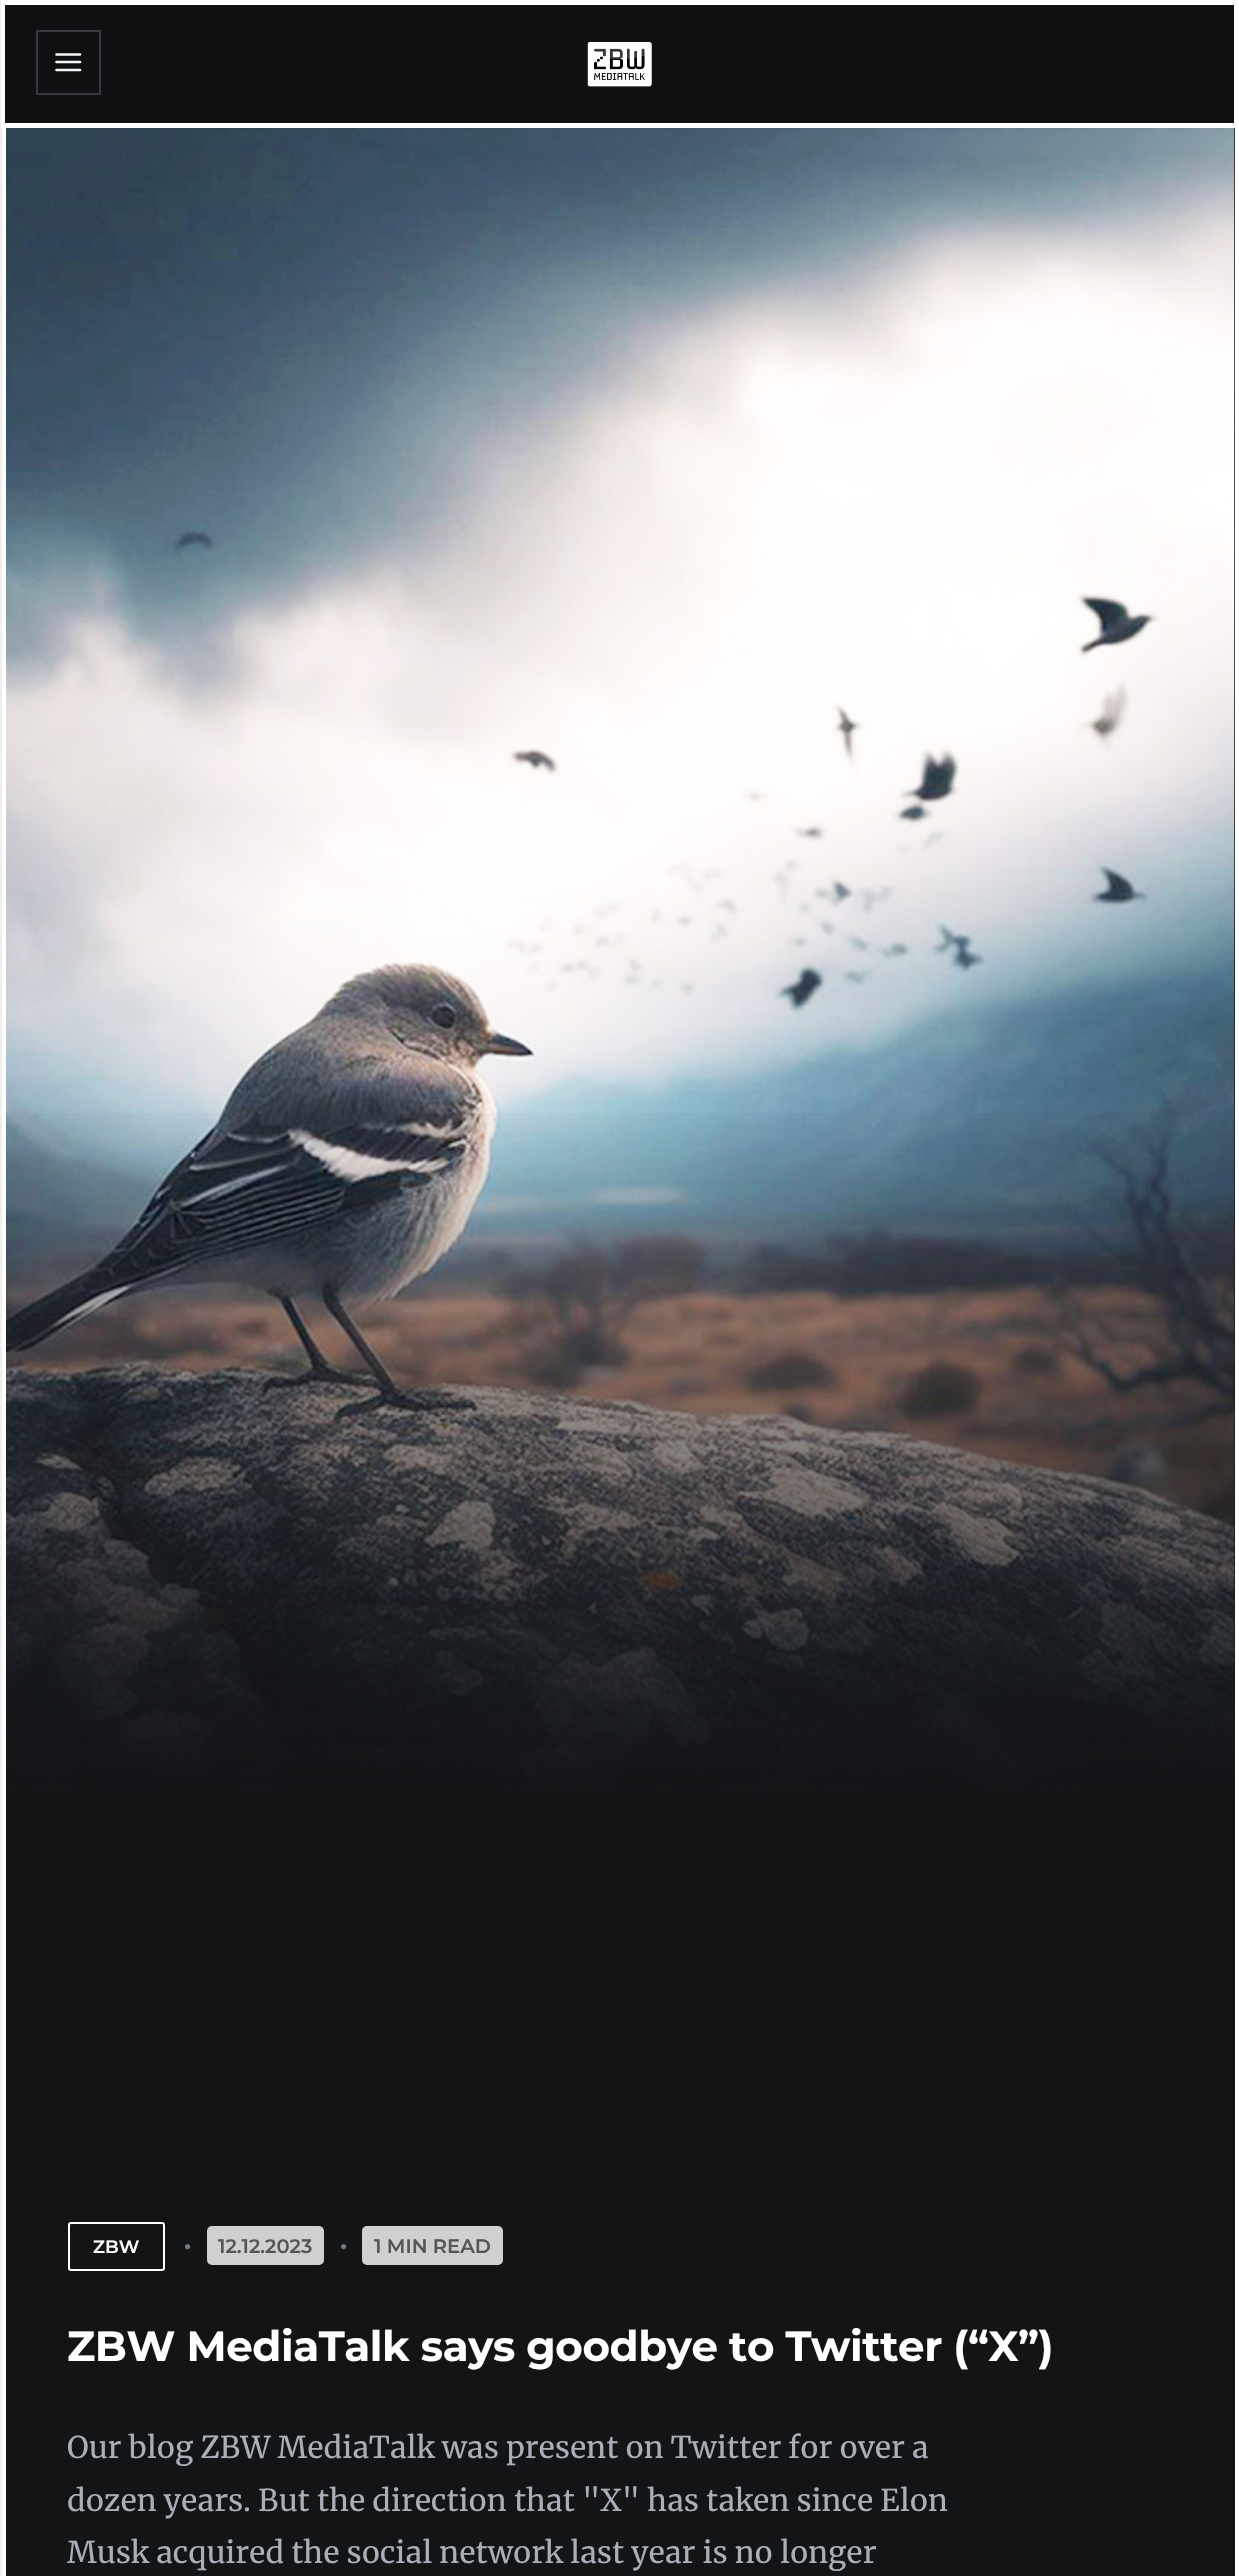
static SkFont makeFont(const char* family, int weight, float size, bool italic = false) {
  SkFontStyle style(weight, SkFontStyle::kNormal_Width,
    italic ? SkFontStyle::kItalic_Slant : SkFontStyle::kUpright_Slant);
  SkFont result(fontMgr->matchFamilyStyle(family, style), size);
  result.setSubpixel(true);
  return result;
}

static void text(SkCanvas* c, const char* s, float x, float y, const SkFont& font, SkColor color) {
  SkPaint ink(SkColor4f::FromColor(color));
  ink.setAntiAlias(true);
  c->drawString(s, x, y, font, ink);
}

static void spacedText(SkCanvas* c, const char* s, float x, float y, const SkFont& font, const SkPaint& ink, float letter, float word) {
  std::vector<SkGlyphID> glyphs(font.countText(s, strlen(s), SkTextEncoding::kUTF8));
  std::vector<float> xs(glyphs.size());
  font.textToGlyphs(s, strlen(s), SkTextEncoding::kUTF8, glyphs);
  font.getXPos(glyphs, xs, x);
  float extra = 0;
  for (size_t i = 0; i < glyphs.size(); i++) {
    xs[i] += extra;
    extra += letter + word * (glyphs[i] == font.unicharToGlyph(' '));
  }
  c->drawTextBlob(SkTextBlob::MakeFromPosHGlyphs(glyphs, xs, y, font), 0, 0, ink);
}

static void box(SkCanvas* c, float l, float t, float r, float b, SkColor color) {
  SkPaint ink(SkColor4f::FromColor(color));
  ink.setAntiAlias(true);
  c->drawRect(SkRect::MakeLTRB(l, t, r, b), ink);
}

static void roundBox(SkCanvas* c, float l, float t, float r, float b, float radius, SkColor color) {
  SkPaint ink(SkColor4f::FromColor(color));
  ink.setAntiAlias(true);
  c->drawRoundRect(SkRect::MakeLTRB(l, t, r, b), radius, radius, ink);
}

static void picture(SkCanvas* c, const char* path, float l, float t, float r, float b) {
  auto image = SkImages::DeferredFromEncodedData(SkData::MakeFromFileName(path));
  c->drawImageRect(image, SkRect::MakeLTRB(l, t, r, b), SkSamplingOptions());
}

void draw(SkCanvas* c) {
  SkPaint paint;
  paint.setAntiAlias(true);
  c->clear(0xffffffff);
  box(c, 0, 0, 1, 2576, 0xffeeeeee);
  box(c, 1, 128, 2, 2576, 0xfff0f0f1);
  box(c, 5, 5, 1234, 123, 0xff0f1011);
  paint.setStyle(SkPaint::kStroke_Style);
  paint.setStrokeWidth(2);
  paint.setColor(0xff38383f);
  c->drawRect(SkRect::MakeLTRB(37, 31, 100, 94), paint);
  paint.setStrokeWidth(2.6f);
  paint.setStrokeCap(SkPaint::kRound_Cap);
  paint.setStrokeJoin(SkPaint::kRound_Join);
  paint.setColor(0xfff2f5f7);
  c->drawPath(SkPathBuilder().moveTo(56.5f, 62).lineTo(80, 62).moveTo(56.5f, 54.5f).lineTo(80, 54.5f).moveTo(56.5f, 70).lineTo(80, 70).detach(), paint);
  picture(c, "img_01.png", 587, 42, 652, 87);
  box(c, 6, 128, 1235, 2576, 0xff131416);
  picture(c, "img_02.png", 6, 128, 1235, 1799);
  paint.setStyle(SkPaint::kFill_Style);
  {
    const SkColor colors[] = {0x00131416, 0xff131416};
    const float stops[] = {0, 1};
    const SkPoint ends[] = {{620, 1098}, {620, 1803}};
    paint.setShader(SkGradientShader::MakeLinear(ends, colors, stops, 2, SkTileMode::kClamp));
    paint.setAlpha(255);
  }
  c->drawRect(SkRect::MakeLTRB(6, 1113, 1235, 1799), paint);
  paint.setStyle(SkPaint::kStroke_Style);
  paint.setStrokeWidth(2);
  paint.setStrokeCap(SkPaint::kButt_Cap);
  paint.setStrokeJoin(SkPaint::kMiter_Join);
  paint.setShader(nullptr);
  paint.setColor(0xffffffff);
  c->drawRoundRect(SkRect::MakeLTRB(69, 2223, 164, 2270), 2, 2, paint);
  SkFont face1 = makeFont("Montserrat", 600, 18);
  text(c, "ZBW", 93, 2253, face1, 0xffffffff);
  SkFont face2 = makeFont("Liberation Sans", 700, 12);
  text(c, "●", 184, 2250, face2, 0xff737a7f);
  roundBox(c, 207, 2226, 324, 2265, 5, 0xffd0d0d0);
  SkFont face3 = makeFont("Montserrat", 600, 19.5f);
  text(c, "12.12.2023", 218, 2253, face3, 0xff555656);
  text(c, "●", 340, 2250, face2, 0xff737a7f);
  roundBox(c, 362, 2226, 503, 2265, 5, 0xffd0d0d0);
  text(c, "1 MIN READ", 374, 2253, face3, 0xff555656);
  SkFont face4 = makeFont("Montserrat", 700, 42);
  paint.setStyle(SkPaint::kFill_Style);
  spacedText(c, "ZBW MediaTalk says goodbye to Twitter (“X”)", 67, 2361, face4, paint, -0.4f, 0);
  SkFont face5 = makeFont("Merriweather", 400, 30);
  text(c, "Our blog ZBW MediaTalk was present on Twitter for over a", 67, 2458, face5, 0xffa9afb9);
  text(c, "dozen years. But the direction that \"X\" has taken since Elon", 67, 2511, face5, 0xffa9afb9);
  text(c, "Musk acquired the social network last year is no longer", 67, 2563, face5, 0xffa9afb9);
}
